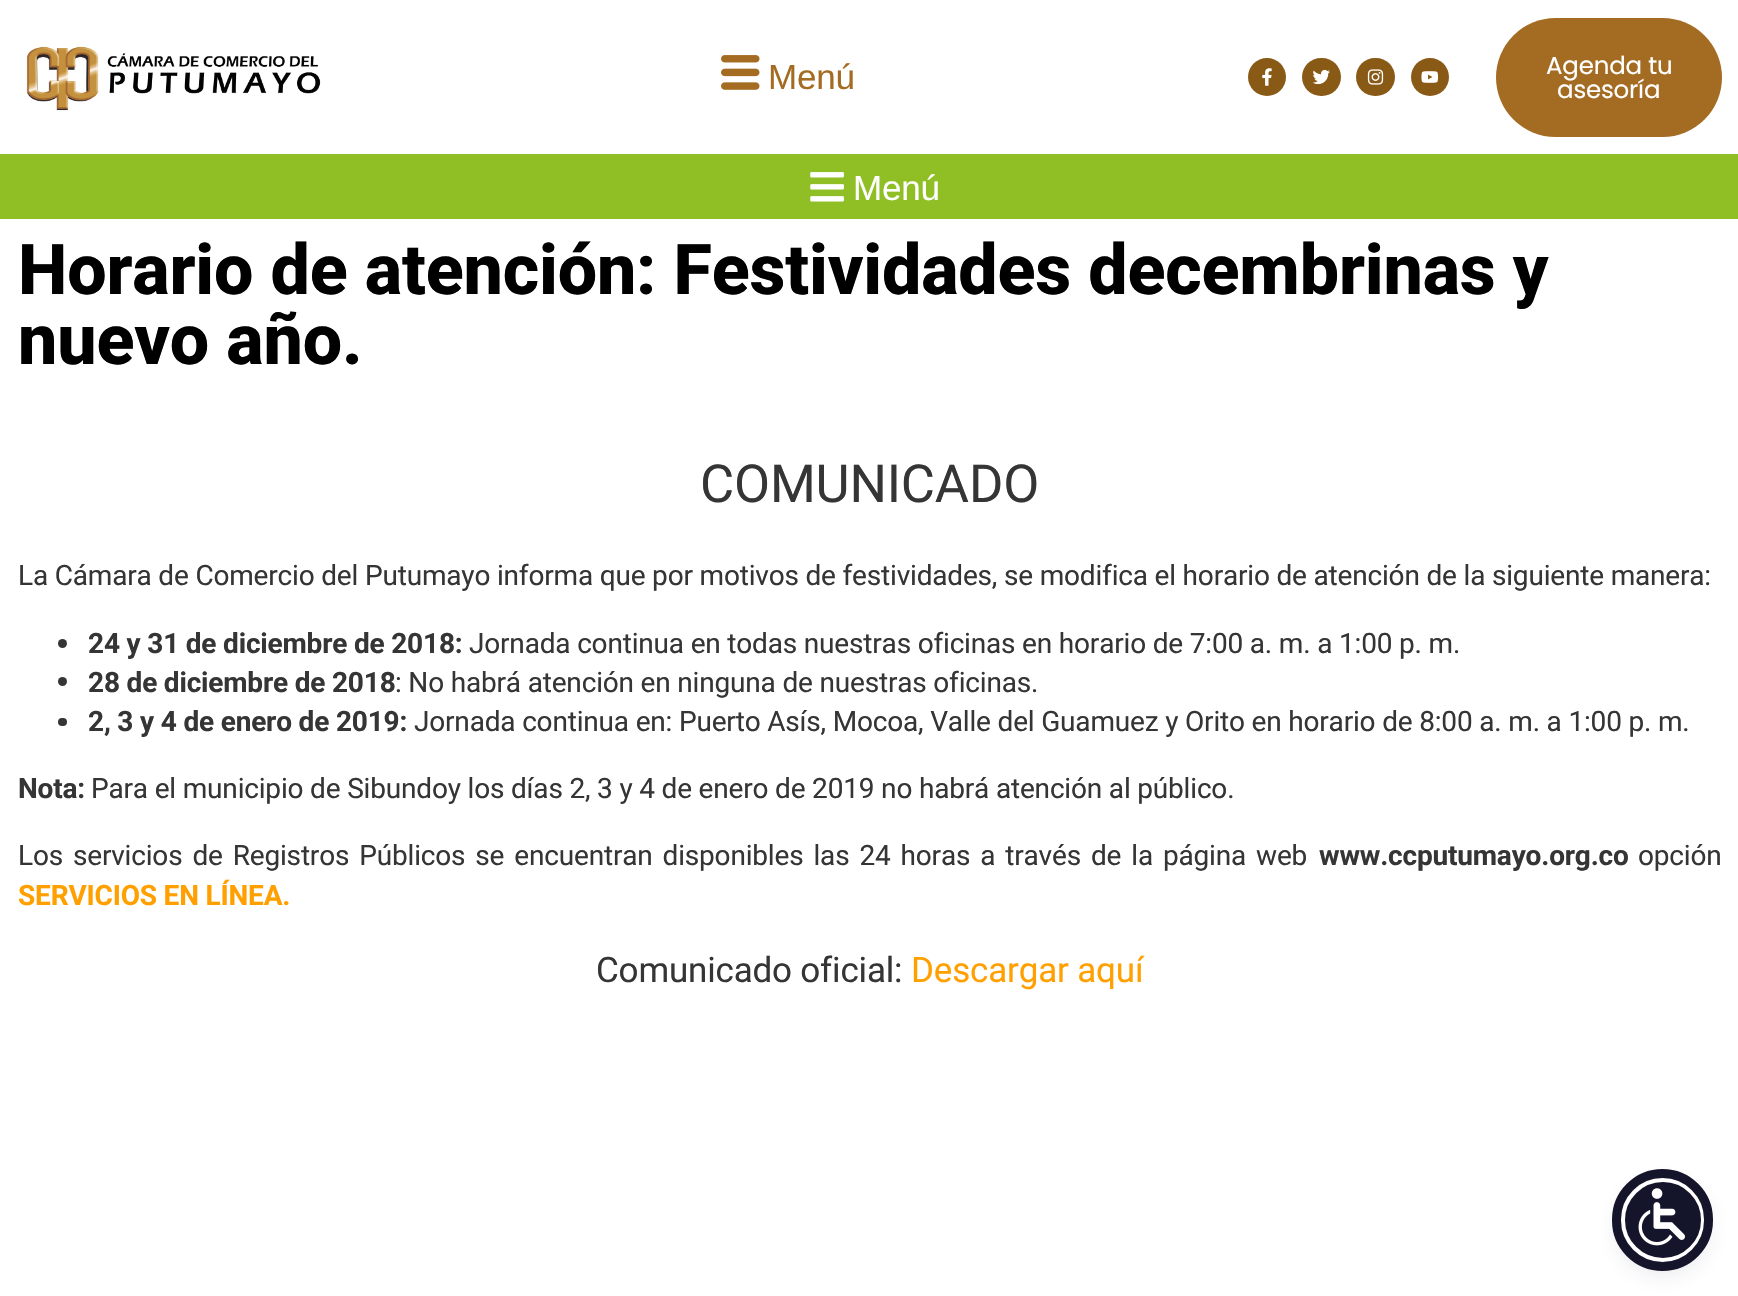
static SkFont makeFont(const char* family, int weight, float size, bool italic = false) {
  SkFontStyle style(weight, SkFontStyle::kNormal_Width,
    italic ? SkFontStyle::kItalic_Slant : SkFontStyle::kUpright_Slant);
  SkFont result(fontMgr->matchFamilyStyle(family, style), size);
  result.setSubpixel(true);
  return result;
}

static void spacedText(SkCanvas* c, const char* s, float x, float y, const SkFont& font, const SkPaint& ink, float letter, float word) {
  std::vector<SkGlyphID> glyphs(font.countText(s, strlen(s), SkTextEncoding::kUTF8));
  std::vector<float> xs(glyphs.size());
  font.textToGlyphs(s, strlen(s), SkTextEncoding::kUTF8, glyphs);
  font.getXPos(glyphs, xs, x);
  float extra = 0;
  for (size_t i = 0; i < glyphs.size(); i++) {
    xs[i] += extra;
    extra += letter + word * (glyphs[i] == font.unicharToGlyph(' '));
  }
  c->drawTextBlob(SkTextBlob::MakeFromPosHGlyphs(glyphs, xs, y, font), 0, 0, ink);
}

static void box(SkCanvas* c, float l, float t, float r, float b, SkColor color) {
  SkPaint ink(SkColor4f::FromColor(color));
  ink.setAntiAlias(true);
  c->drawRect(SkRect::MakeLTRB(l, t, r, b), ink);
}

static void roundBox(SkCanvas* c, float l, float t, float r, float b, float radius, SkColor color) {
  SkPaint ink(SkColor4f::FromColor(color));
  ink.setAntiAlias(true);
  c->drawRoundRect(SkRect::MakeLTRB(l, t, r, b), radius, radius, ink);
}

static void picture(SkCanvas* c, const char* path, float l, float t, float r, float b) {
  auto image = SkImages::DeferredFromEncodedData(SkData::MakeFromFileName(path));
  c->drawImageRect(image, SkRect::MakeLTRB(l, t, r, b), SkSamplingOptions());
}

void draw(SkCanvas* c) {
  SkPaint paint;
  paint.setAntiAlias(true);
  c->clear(0xffffffff);
  picture(c, "img_01.png", 26, 46, 321, 111);
  picture(c, "img_02.png", 721, 55, 760, 90);
  SkFont face1 = makeFont("Liberation Sans", 400, 35);
  paint.setColor(0xffa46c22);
  spacedText(c, "Menú", 768, 89, face1, paint, -0.18f, 0);
  paint.setColor(0xff895916);
  c->drawCircle(1267, 77, 19, paint);
  picture(c, "img_03.png", 1262, 68, 1272, 86);
  roundBox(c, 1302, 58, 1341, 96, 19, 0xff895916);
  picture(c, "img_04.png", 1313, 69, 1330, 85);
  roundBox(c, 1356, 58, 1395, 96, 19, 0xff895916);
  picture(c, "img_05.png", 1367, 69, 1384, 85);
  c->drawCircle(1430, 77, 19, paint);
  picture(c, "img_06.png", 1421, 71, 1439, 83);
  roundBox(c, 1496, 18, 1722, 137, 59.5f, 0xffa46c22);
  SkFont face2 = makeFont("Poppins", 400, 24.5f);
  paint.setColor(0xffffffff);
  spacedText(c, "Agenda tu", 1546, 74, face2, paint, -0.18f, 0);
  spacedText(c, "asesoría", 1557, 98, face2, paint, -0.18f, 0);
  box(c, 0, 154, 1738, 219, 0xff8fbf24);
  picture(c, "img_07.png", 810, 172, 844, 202);
  spacedText(c, "Menú", 853, 200, face1, paint, -0.18f, 0);
  SkFont face3 = makeFont("Roboto", 800, 70);
  paint.setColor(0xff000000);
  spacedText(c, "Horario de atención: Festividades decembrinas y", 18, 294, face3, paint, -0.18f, 0);
  spacedText(c, "nuevo año.", 18, 364, face3, paint, -0.18f, 0);
  SkFont face4 = makeFont("Roboto", 400, 52.5f);
  paint.setColor(0xff353535);
  spacedText(c, "COMUNICADO", 700, 502, face4, paint, -0.18f, 0);
  SkFont face5 = makeFont("Roboto", 400, 28);
  spacedText(c, "La Cámara de Comercio del Putumayo informa que por motivos de festividades, se modifica el horario de atención de la siguiente manera:", 18, 585, face5, paint, -0.18f, 0);
  c->drawCircle(62.5f, 643.5f, 4.5f, paint);
  SkFont face6 = makeFont("Roboto", 700, 28);
  spacedText(c, "24 y 31 de diciembre de 2018:", 88, 653, face6, paint, -0.18f, 0);
  spacedText(c, "Jornada continua en todas nuestras oficinas en horario de 7:00 a. m. a 1:00 p. m.", 469, 653, face5, paint, -0.18f, 0);
  c->drawCircle(62.5f, 681.5f, 4.5f, paint);
  spacedText(c, "28 de diciembre de 2018", 88, 692, face6, paint, -0.18f, 0);
  spacedText(c, ": No habrá atención en ninguna de nuestras oficinas.", 395, 692, face5, paint, -0.18f, 0);
  roundBox(c, 58, 718, 67, 726, 4, 0xff353535);
  spacedText(c, "2, 3 y 4 de enero de 2019:", 88, 731, face6, paint, -0.18f, 0);
  spacedText(c, "Jornada continua en: Puerto Asís, Mocoa, Valle del Guamuez y Orito en horario de 8:00 a. m. a 1:00 p. m.", 414, 731, face5, paint, -0.18f, 0);
  spacedText(c, "Nota:", 18, 798, face6, paint, -0.18f, 0);
  spacedText(c, "Para el municipio de Sibundoy los días 2, 3 y 4 de enero de 2019 no habrá atención al público.", 91, 798, face5, paint, -0.18f, 0);
  spacedText(c, "Los servicios de Registros Públicos se encuentran disponibles las 24 horas a través de la página web", 18, 865, face5, paint, -0.18f, 3.25f);
  spacedText(c, "www.ccputumayo.org.co", 1319, 865, face6, paint, -0.18f, 0);
  spacedText(c, "opción", 1638, 865, face5, paint, -0.18f, 0);
  paint.setColor(0xffffa000);
  spacedText(c, "SERVICIOS EN LÍNEA.", 18, 905, face6, paint, -0.18f, 0);
  SkFont face7 = makeFont("Roboto", 400, 35);
  paint.setColor(0xff353535);
  spacedText(c, "Comunicado oficial:", 596, 982, face7, paint, -0.18f, 0);
  paint.setColor(0xffffa000);
  spacedText(c, "Descargar aquí", 911, 982, face7, paint, -0.18f, 0);
  paint.setColor(0x335d6494);
  paint.setMaskFilter(SkMaskFilter::MakeBlur(kNormal_SkBlurStyle, 3.5f));
  c->drawRoundRect(SkRect::MakeLTRB(1621, 1181, 1705, 1265), 42, 42, paint);
  paint.setMaskFilter(nullptr);
  paint.setColor(0x26252c61);
  paint.setMaskFilter(SkMaskFilter::MakeBlur(kNormal_SkBlurStyle, 13));
  c->drawRoundRect(SkRect::MakeLTRB(1621, 1187, 1705, 1271), 42, 42, paint);
  paint.setMaskFilter(nullptr);
  paint.setColor(0xff14142a);
  c->drawCircle(1663, 1220, 40, paint);
  paint.setStyle(SkPaint::kStroke_Style);
  paint.setStrokeWidth(4);
  paint.setColor(0xffffffff);
  c->drawCircle(1663, 1220, 40, paint);
  paint.setStrokeWidth(9);
  paint.setColor(0xff14142a);
  c->drawRoundRect(SkRect::MakeLTRB(1616.5f, 1173.5f, 1708.5f, 1266.5f), 46, 46, paint);
  picture(c, "img_08.png", 1638, 1188, 1685, 1246);
}
